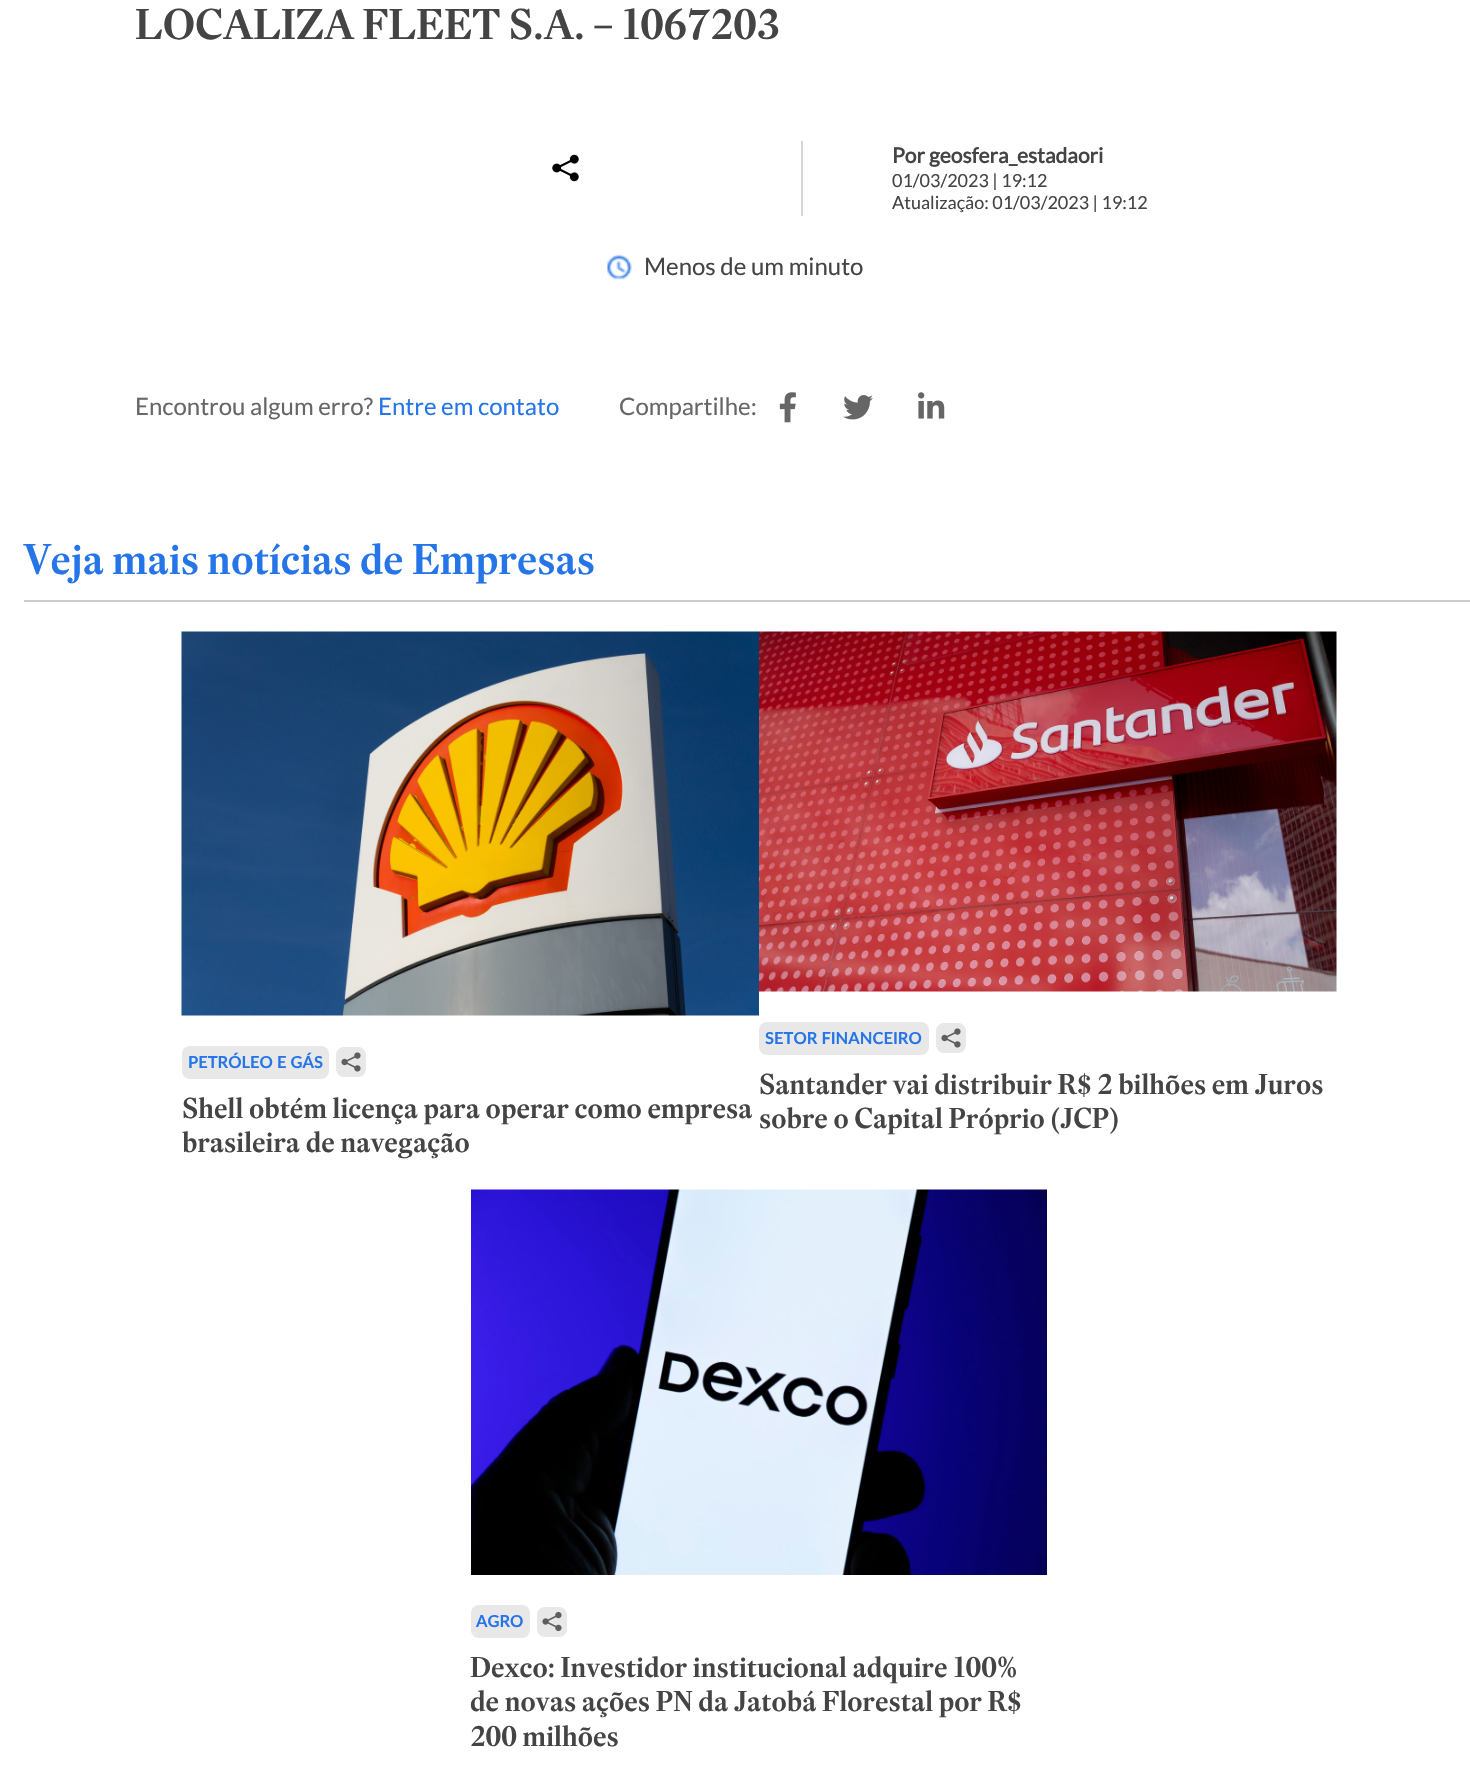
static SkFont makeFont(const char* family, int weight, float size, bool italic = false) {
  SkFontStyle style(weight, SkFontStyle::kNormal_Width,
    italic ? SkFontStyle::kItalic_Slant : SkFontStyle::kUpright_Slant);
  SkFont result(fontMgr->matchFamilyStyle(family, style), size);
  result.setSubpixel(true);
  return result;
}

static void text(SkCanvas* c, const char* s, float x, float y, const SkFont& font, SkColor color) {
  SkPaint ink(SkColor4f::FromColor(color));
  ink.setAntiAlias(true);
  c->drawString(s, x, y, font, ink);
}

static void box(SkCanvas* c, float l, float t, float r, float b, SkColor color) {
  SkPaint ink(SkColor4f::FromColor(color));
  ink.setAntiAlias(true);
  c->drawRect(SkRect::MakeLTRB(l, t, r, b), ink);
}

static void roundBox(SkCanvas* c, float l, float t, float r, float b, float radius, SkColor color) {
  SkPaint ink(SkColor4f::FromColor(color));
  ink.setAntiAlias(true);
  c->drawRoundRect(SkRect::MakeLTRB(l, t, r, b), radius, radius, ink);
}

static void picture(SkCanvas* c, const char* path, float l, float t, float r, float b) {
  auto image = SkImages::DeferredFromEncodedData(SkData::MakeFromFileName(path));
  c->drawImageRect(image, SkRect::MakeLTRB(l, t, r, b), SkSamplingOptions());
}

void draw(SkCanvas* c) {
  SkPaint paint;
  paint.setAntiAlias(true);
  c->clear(0xffffffff);
  SkFont face1 = makeFont("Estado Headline", 600, 42);
  text(c, "LOCALIZA FLEET S.A. – 1067203", 135, 39, face1, 0xff444444);
  picture(c, "img_01.png", 552, 154, 579, 182);
  box(c, 801, 141, 803, 216, 0xffd6d6d6);
  SkFont face2 = makeFont("Lato", 700, 21);
  text(c, "Por geosfera_estadaori", 892, 163, face2, 0xff444444);
  SkFont face3 = makeFont("Lato", 400, 18);
  text(c, "01/03/2023 | 19:12", 892, 187, face3, 0xff444444);
  text(c, "Atualização: 01/03/2023 | 19:12", 892, 209, face3, 0xff444444);
  picture(c, "img_02.png", 607, 254, 632, 280);
  SkFont face4 = makeFont("Lato", 400, 24);
  text(c, "Menos de um minuto", 644, 275, face4, 0xff444444);
  text(c, "Encontrou algum erro?", 135, 415, face4, 0xff666666);
  text(c, "Entre em contato", 378, 415, face4, 0xff2575e8);
  text(c, "Compartilhe:", 619, 415, face4, 0xff666666);
  picture(c, "img_03.png", 779, 392, 796, 423);
  picture(c, "img_04.png", 843, 395, 873, 420);
  picture(c, "img_05.png", 918, 392, 945, 419);
  box(c, 24, 600, 1470, 602, 0xffcccccc);
  text(c, "Veja mais notícias de Empresas", 24, 574, face1, 0xff2575e8);
  picture(c, "img_06.png", 181, 631, 759, 1016);
  roundBox(c, 182, 1046, 329, 1079, 8, 0xffe8e8e8);
  SkFont face5 = makeFont("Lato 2", 700, 16.5f);
  text(c, "PETRÓLEO E GÁS", 188, 1068, face5, 0xff2575e8);
  roundBox(c, 336, 1047, 366, 1077, 8, 0xffe8e8e8);
  picture(c, "img_07.png", 341, 1052, 361, 1072);
  SkFont face6 = makeFont("Estado Headline", 600, 28.1f);
  text(c, "Shell obtém licença para operar como empresa", 182, 1118, face6, 0xff444444);
  text(c, "brasileira de navegação", 182, 1152, face6, 0xff444444);
  picture(c, "img_08.png", 759, 631, 1337, 992);
  roundBox(c, 759, 1022, 929, 1055, 8, 0xffe8e8e8);
  text(c, "SETOR FINANCEIRO", 765, 1044, face5, 0xff2575e8);
  roundBox(c, 936, 1023, 966, 1053, 8, 0xffe8e8e8);
  picture(c, "img_07.png", 941, 1028, 961, 1048);
  text(c, "Santander vai distribuir R$ 2 bilhões em Juros", 759, 1094, face6, 0xff444444);
  text(c, "sobre o Capital Próprio (JCP)", 759, 1128, face6, 0xff444444);
  picture(c, "img_09.png", 471, 1189, 1047, 1575);
  roundBox(c, 471, 1605, 530, 1638, 8, 0xffe8e8e8);
  text(c, "AGRO", 476, 1627, face5, 0xff2575e8);
  roundBox(c, 537, 1607, 567, 1637, 8, 0xffe8e8e8);
  picture(c, "img_10.png", 542, 1611, 562, 1632);
  text(c, "Dexco: Investidor institucional adquire 100%", 470, 1677, face6, 0xff444444);
  text(c, "de novas ações PN da Jatobá Florestal por R$", 470, 1711, face6, 0xff444444);
  text(c, "200 milhões", 470, 1746, face6, 0xff444444);
}
